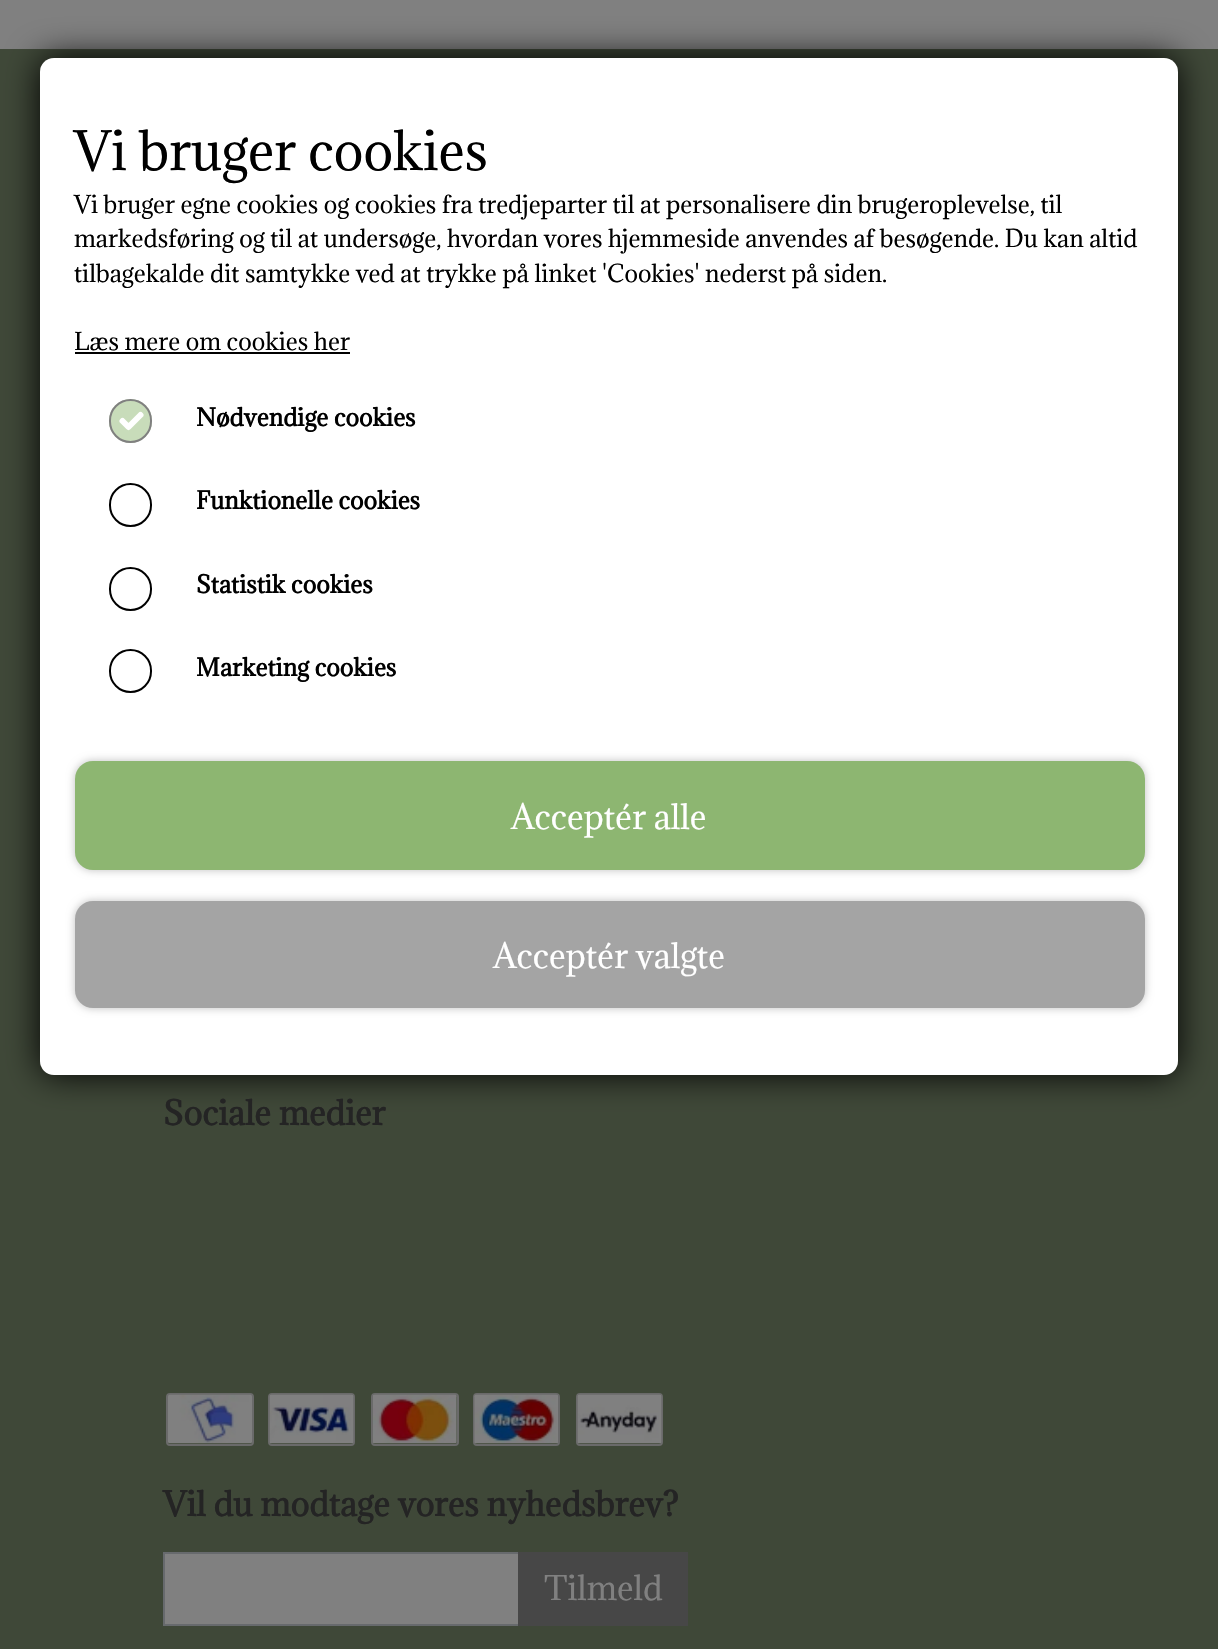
static SkFont makeFont(const char* family, int weight, float size, bool italic = false) {
  SkFontStyle style(weight, SkFontStyle::kNormal_Width,
    italic ? SkFontStyle::kItalic_Slant : SkFontStyle::kUpright_Slant);
  SkFont result(fontMgr->matchFamilyStyle(family, style), size);
  result.setSubpixel(true);
  return result;
}

static void text(SkCanvas* c, const char* s, float x, float y, const SkFont& font, SkColor color) {
  SkPaint ink(SkColor4f::FromColor(color));
  ink.setAntiAlias(true);
  c->drawString(s, x, y, font, ink);
}

static void box(SkCanvas* c, float l, float t, float r, float b, SkColor color) {
  SkPaint ink(SkColor4f::FromColor(color));
  ink.setAntiAlias(true);
  c->drawRect(SkRect::MakeLTRB(l, t, r, b), ink);
}

static void roundBox(SkCanvas* c, float l, float t, float r, float b, float radius, SkColor color) {
  SkPaint ink(SkColor4f::FromColor(color));
  ink.setAntiAlias(true);
  c->drawRoundRect(SkRect::MakeLTRB(l, t, r, b), radius, radius, ink);
}

static void picture(SkCanvas* c, const char* path, float l, float t, float r, float b) {
  auto image = SkImages::DeferredFromEncodedData(SkData::MakeFromFileName(path));
  c->drawImageRect(image, SkRect::MakeLTRB(l, t, r, b), SkSamplingOptions());
}

void draw(SkCanvas* c) {
  SkPaint paint;
  paint.setAntiAlias(true);
  c->clear(0xff3f4838);
  box(c, 0, 0, 1218, 49, 0xff808080);
  paint.setColor(0xff000000);
  paint.setMaskFilter(SkMaskFilter::MakeBlur(kNormal_SkBlurStyle, 17.5f));
  c->drawRoundRect(SkRect::MakeLTRB(40, 58, 1178, 1075), 14, 14, paint);
  paint.setMaskFilter(nullptr);
  roundBox(c, 40, 58, 1178, 1075, 14, 0xffffffff);
  SkFont face1 = makeFont("Adamina", 400, 50);
  text(c, "Vi bruger cookies", 74, 170, face1, 0xff000000);
  SkFont face2 = makeFont("Adamina", 400, 22.75f);
  text(c, "Vi bruger egne cookies og cookies fra tredjeparter til at personalisere din brugeroplevelse, til", 74, 213, face2, 0xff000000);
  text(c, "markedsføring og til at undersøge, hvordan vores hjemmeside anvendes af besøgende. Du kan altid", 74, 247, face2, 0xff000000);
  text(c, "tilbagekalde dit samtykke ved at trykke på linket 'Cookies' nederst på siden.", 74, 282, face2, 0xff000000);
  text(c, "Læs mere om cookies her", 74, 350, face2, 0xff000000);
  box(c, 75, 352, 350, 354, 0xff000000);
  roundBox(c, 109, 399, 152, 443, 21.5f, 0xffc8dcba);
  paint.setStyle(SkPaint::kStroke_Style);
  paint.setStrokeWidth(6);
  paint.setStrokeCap(SkPaint::kRound_Cap);
  paint.setStrokeJoin(SkPaint::kRound_Join);
  paint.setColor(0xffffffff);
  c->drawPath(SkPathBuilder().moveTo(122.5f, 421).lineTo(128.5f, 427).lineTo(140.5f, 415).detach(), paint);
  paint.setStrokeWidth(2);
  paint.setStrokeCap(SkPaint::kButt_Cap);
  paint.setStrokeJoin(SkPaint::kMiter_Join);
  paint.setColor(0xff808080);
  c->drawRoundRect(SkRect::MakeLTRB(110, 400, 151, 442), 20.5f, 20.5f, paint);
  SkFont face3 = makeFont("Adamina", 700, 22.75f);
  text(c, "Nødvendige cookies", 196, 426, face3, 0xff000000);
  paint.setColor(0xff000000);
  c->drawRoundRect(SkRect::MakeLTRB(110, 484, 151, 526), 20.5f, 20.5f, paint);
  text(c, "Funktionelle cookies", 196, 509, face3, 0xff000000);
  c->drawRoundRect(SkRect::MakeLTRB(110, 568, 151, 610), 20.5f, 20.5f, paint);
  text(c, "Statistik cookies", 196, 593, face3, 0xff000000);
  c->drawRoundRect(SkRect::MakeLTRB(110, 650, 151, 692), 20.5f, 20.5f, paint);
  text(c, "Marketing cookies", 196, 676, face3, 0xff000000);
  paint.setStyle(SkPaint::kFill_Style);
  paint.setColor(0x40000000);
  paint.setMaskFilter(SkMaskFilter::MakeBlur(kNormal_SkBlurStyle, 4.5f));
  c->drawRoundRect(SkRect::MakeLTRB(75, 761, 1145, 870), 18, 18, paint);
  paint.setMaskFilter(nullptr);
  roundBox(c, 75, 761, 1145, 870, 18, 0xff8db671);
  SkFont face4 = makeFont("Adamina", 400, 31.75f);
  text(c, "Acceptér alle", 511, 829, face4, 0xffffffff);
  paint.setMaskFilter(SkMaskFilter::MakeBlur(kNormal_SkBlurStyle, 4.5f));
  c->drawRoundRect(SkRect::MakeLTRB(75, 901, 1145, 1008), 18, 18, paint);
  paint.setMaskFilter(nullptr);
  roundBox(c, 75, 901, 1145, 1008, 18, 0xffa4a4a4);
  text(c, "Acceptér valgte", 493, 968, face4, 0xffffffff);
  SkFont face5 = makeFont("Adamina", 700, 31.5f);
  text(c, "Sociale medier", 163, 1125, face5, 0xff242424);
  paint.setStyle(SkPaint::kStroke_Style);
  paint.setColor(0xff6a6a6a);
  c->drawRoundRect(SkRect::MakeLTRB(167, 1394, 253, 1445), 3, 3, paint);
  c->drawRoundRect(SkRect::MakeLTRB(269, 1394, 354, 1445), 3, 3, paint);
  c->drawRoundRect(SkRect::MakeLTRB(372, 1394, 458, 1445), 3, 3, paint);
  c->drawRoundRect(SkRect::MakeLTRB(474, 1394, 559, 1445), 3, 3, paint);
  c->drawRoundRect(SkRect::MakeLTRB(577, 1394, 662, 1445), 3, 3, paint);
  picture(c, "img_01.png", 168, 1394, 252, 1444);
  picture(c, "img_02.png", 269, 1394, 354, 1444);
  picture(c, "img_03.png", 373, 1394, 457, 1444);
  picture(c, "img_04.png", 474, 1394, 558, 1444);
  picture(c, "img_05.png", 577, 1394, 662, 1444);
  text(c, "Vil du modtage vores nyhedsbrev?", 163, 1516, face5, 0xff242424);
  paint.setStyle(SkPaint::kFill_Style);
  paint.setColor(0xff808080);
  c->drawRect(SkRect::MakeLTRB(164, 1553, 519, 1625), paint);
  paint.setStyle(SkPaint::kStroke_Style);
  paint.setColor(0xff676a6d);
  c->drawRect(SkRect::MakeLTRB(164, 1553, 519, 1625), paint);
  box(c, 518, 1552, 688, 1626, 0xff474747);
  SkFont face6 = makeFont("Adamina", 400, 31.5f);
  text(c, "Tilmeld", 544, 1600, face6, 0xff808080);
}
